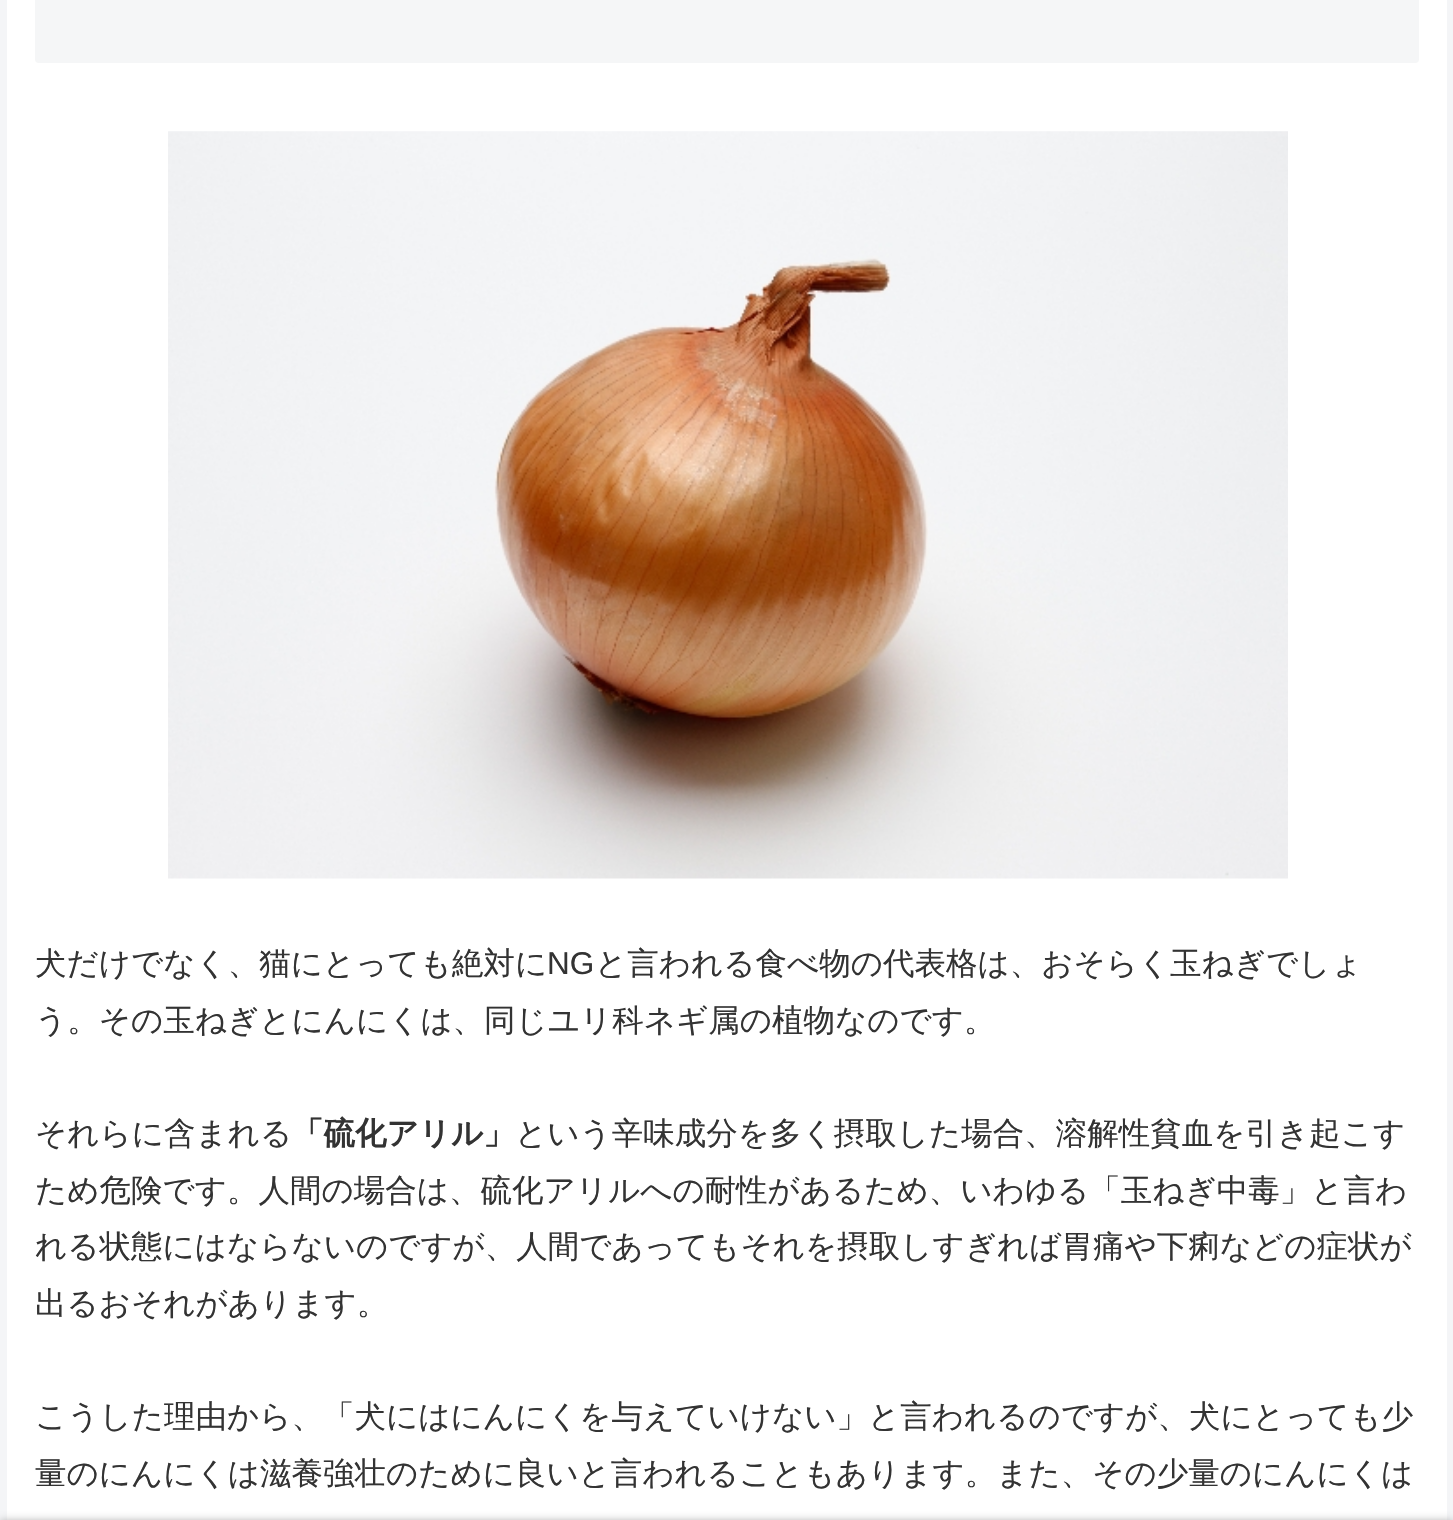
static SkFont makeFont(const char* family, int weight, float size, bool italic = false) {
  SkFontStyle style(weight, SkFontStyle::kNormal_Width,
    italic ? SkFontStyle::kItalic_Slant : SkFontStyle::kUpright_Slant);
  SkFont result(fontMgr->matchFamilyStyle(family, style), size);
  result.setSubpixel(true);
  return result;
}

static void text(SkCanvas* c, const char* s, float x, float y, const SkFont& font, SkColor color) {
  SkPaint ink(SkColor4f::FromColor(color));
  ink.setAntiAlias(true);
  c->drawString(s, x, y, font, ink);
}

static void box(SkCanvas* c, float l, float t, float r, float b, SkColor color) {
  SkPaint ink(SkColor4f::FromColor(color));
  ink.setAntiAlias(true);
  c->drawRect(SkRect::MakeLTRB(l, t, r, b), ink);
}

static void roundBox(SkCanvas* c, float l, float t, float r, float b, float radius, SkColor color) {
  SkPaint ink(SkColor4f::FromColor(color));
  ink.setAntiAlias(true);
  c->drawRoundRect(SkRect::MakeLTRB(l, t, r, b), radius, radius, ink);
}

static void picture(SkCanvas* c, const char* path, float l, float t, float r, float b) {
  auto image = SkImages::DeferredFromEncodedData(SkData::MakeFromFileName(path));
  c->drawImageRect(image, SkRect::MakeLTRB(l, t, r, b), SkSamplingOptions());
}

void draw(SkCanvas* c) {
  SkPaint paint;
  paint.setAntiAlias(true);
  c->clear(0xfff4f5f7);
  box(c, 7, 0, 1447, 1520, 0xffffffff);
  roundBox(c, 35, -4, 1419, 63, 4, 0xfff5f6f7);
  picture(c, "img_01.png", 168, 131, 1288, 879);
  SkFont face1 = makeFont("WenQuanYi Zen Hei", 500, 31.5f);
  text(c, "犬だけでなく、猫にとっても絶対に", 35, 974, face1, 0xff333333);
  SkFont face2 = makeFont("Liberation Sans", 400, 31.5f);
  text(c, "NG", 547, 974, face2, 0xff333333);
  text(c, "と言われる食べ物の代表格は、おそらく玉ねぎでしょ", 595, 974, face1, 0xff333333);
  text(c, "う。その玉ねぎとにんにくは、同じユリ科ネギ属の植物なのです。", 35, 1031, face1, 0xff333333);
  text(c, "それらに含まれる", 35, 1144, face1, 0xff333333);
  SkFont face3 = makeFont("WenQuanYi Zen Hei", 700, 31.5f);
  text(c, "「硫化アリル」", 292, 1144, face3, 0xff333333);
  text(c, "という辛味成分を多く摂取した場合、溶解性貧血を引き起こす", 515, 1144, face1, 0xff333333);
  text(c, "ため危険です。人間の場合は、硫化アリルへの耐性があるため、いわゆる「玉ねぎ中毒」と言わ", 35, 1201, face1, 0xff333333);
  text(c, "れる状態にはならないのですが、人間であってもそれを摂取しすぎれば胃痛や下痢などの症状が", 35, 1257, face1, 0xff333333);
  text(c, "出るおそれがあります。", 35, 1314, face1, 0xff333333);
  text(c, "こうした理由から、「犬にはにんにくを与えていけない」と言われるのですが、犬にとっても少", 35, 1427, face1, 0xff333333);
  text(c, "量のにんにくは滋養強壮のために良いと言われることもあります。また、その少量のにんにくは", 35, 1484, face1, 0xff333333);
  paint.setColor(0xffa9a9a9);
  paint.setMaskFilter(SkMaskFilter::MakeBlur(kNormal_SkBlurStyle, 4.5f));
  c->drawRect(SkRect::MakeLTRB(0, 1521, 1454, 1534), paint);
  paint.setMaskFilter(nullptr);
}
